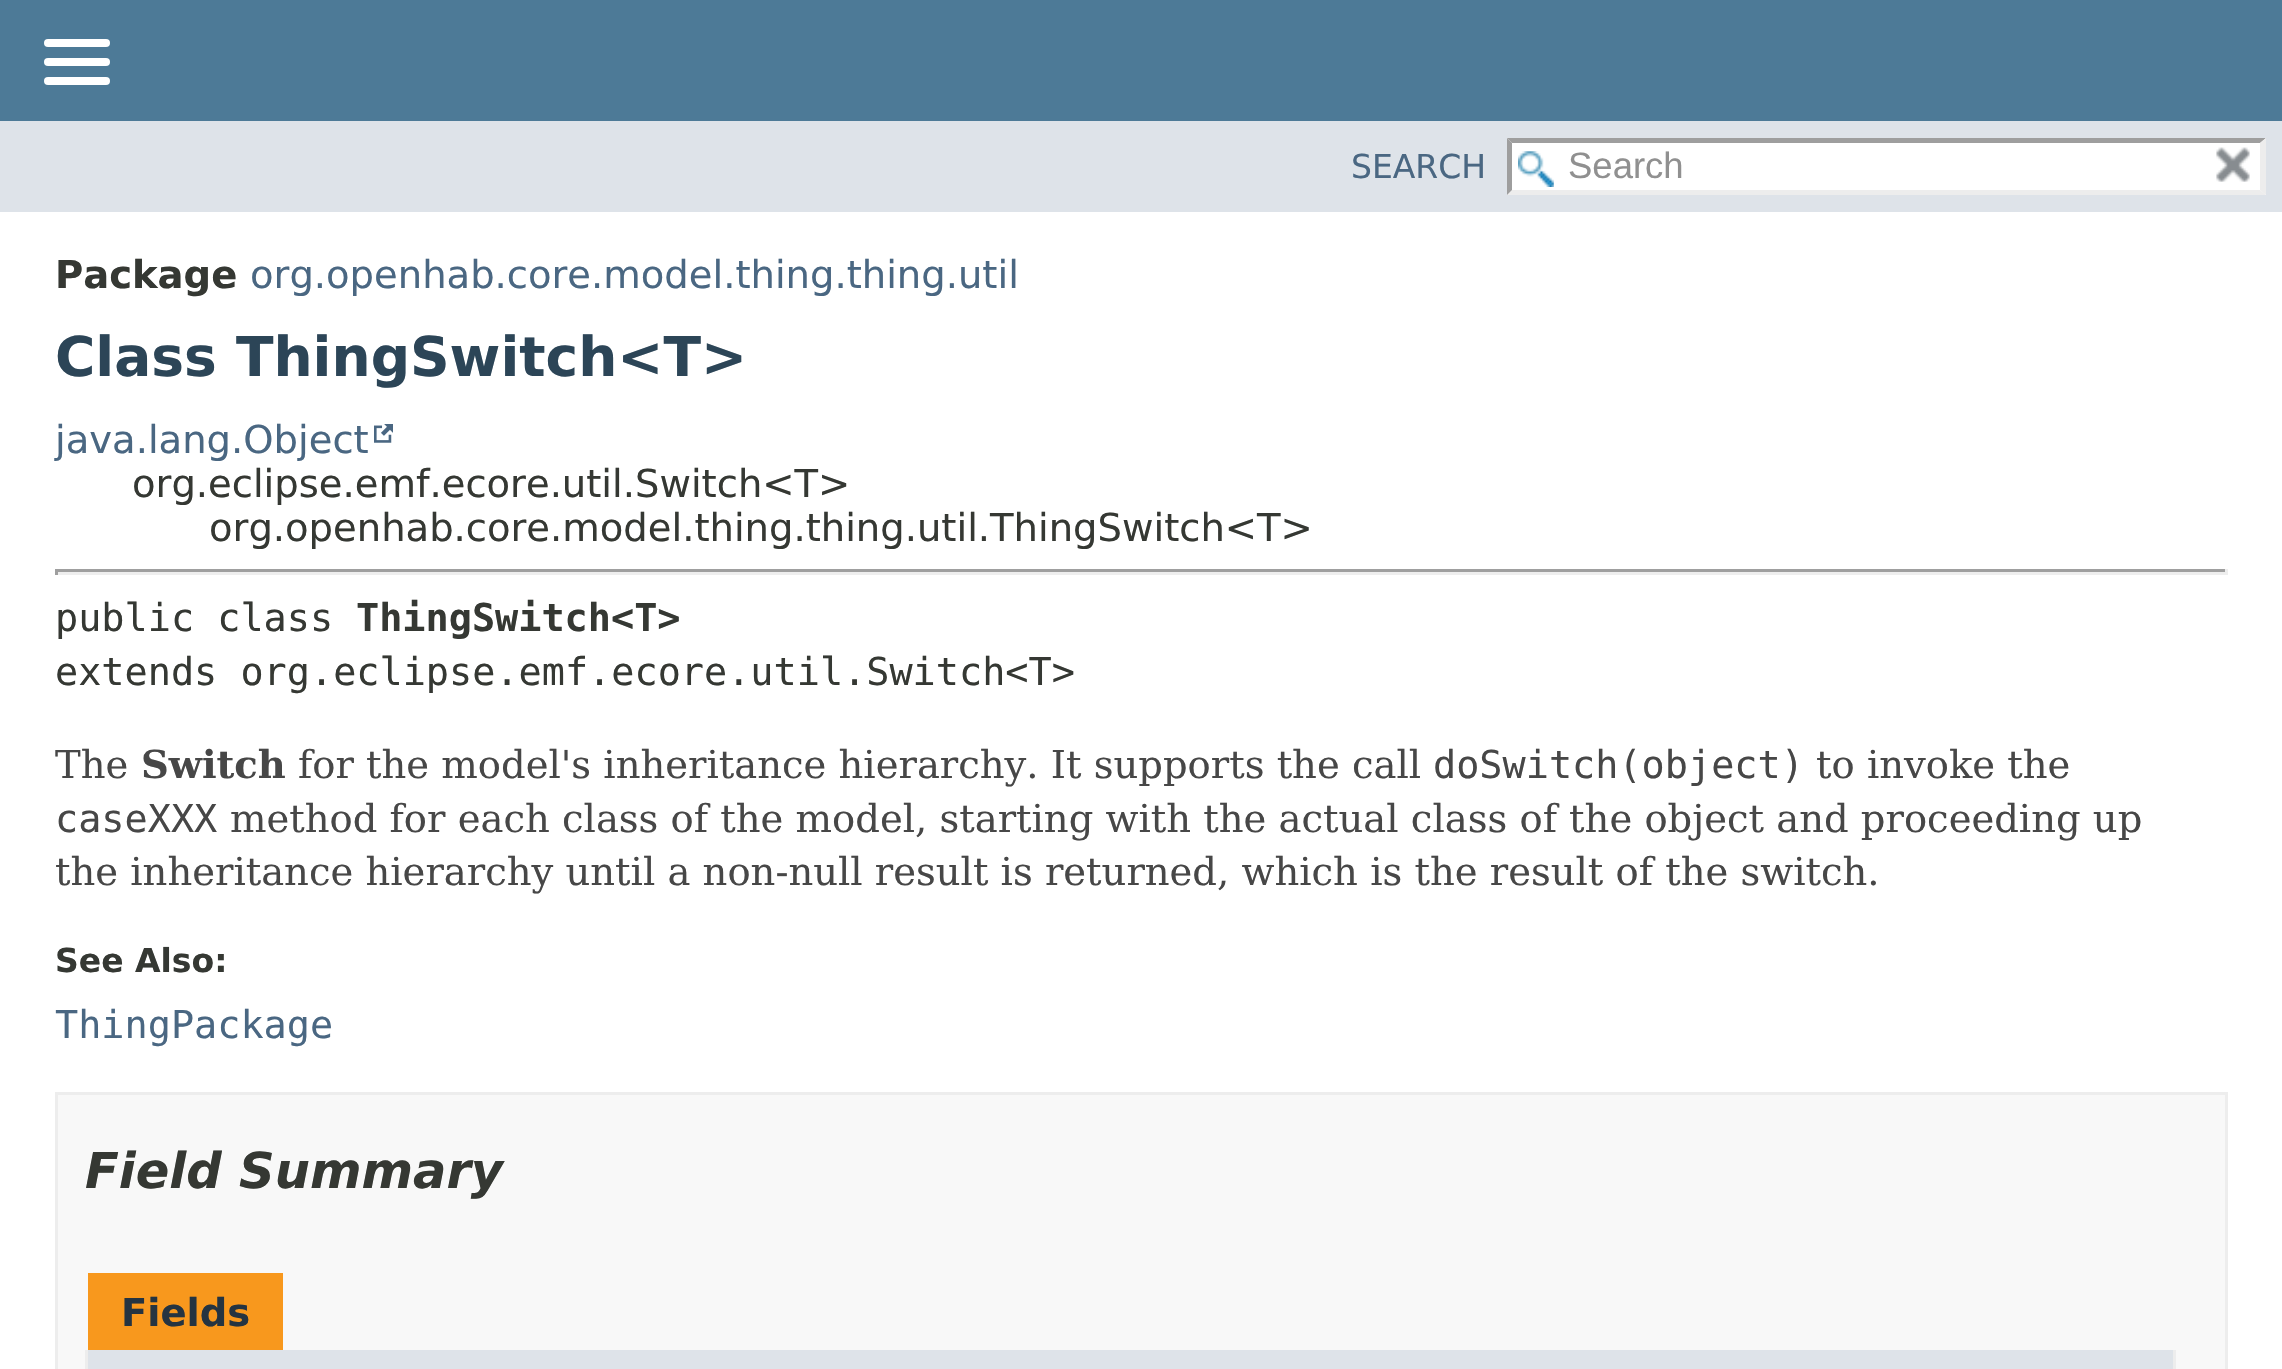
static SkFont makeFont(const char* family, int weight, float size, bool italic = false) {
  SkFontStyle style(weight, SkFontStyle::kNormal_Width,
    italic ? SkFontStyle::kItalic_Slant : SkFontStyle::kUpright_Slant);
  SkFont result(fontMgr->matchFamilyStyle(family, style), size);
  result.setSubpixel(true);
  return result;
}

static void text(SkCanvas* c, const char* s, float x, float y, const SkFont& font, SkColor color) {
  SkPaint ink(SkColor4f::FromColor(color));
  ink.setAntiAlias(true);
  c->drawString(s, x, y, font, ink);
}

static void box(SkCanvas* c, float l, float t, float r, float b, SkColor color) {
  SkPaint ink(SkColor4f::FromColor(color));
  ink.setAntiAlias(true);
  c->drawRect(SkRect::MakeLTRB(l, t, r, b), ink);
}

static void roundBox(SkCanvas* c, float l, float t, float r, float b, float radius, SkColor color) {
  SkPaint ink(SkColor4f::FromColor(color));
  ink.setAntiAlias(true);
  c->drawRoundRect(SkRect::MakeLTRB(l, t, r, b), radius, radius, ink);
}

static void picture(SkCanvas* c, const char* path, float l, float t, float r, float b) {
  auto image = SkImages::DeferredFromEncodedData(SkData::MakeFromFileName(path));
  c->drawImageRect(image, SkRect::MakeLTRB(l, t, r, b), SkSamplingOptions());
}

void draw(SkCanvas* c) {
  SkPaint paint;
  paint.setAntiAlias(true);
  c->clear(0xffffffff);
  box(c, 0, 0, 2282, 121, 0xff4d7a97);
  roundBox(c, 44, 39, 110, 47, 4, 0xffffffff);
  roundBox(c, 44, 58, 110, 66, 4, 0xffffffff);
  roundBox(c, 44, 77, 110, 85, 4, 0xffffffff);
  box(c, 0, 121, 2282, 212, 0xffdee3e9);
  SkFont face1 = makeFont("DejaVu Sans", 400, 33);
  text(c, "SEARCH", 1351, 178, face1, 0xff4a6782);
  box(c, 1507, 138, 2266, 195, 0xffffffff);
  picture(c, "img_01.png", 1518, 151, 1554, 187);
  paint.setColor(0xff9e9e9e);
  c->drawPath(SkPathBuilder().moveTo(1507, 138).lineTo(2266, 138).lineTo(2260, 143).lineTo(1512, 143).close().detach(), paint);
  paint.setColor(0xffededed);
  c->drawPath(SkPathBuilder().moveTo(2266, 138).lineTo(2266, 195).lineTo(2260, 190).lineTo(2260, 143).close().detach(), paint);
  c->drawPath(SkPathBuilder().moveTo(2266, 195).lineTo(1507, 195).lineTo(1512, 190).lineTo(2260, 190).close().detach(), paint);
  paint.setColor(0xff9e9e9e);
  c->drawPath(SkPathBuilder().moveTo(1507, 195).lineTo(1507, 138).lineTo(1512, 143).lineTo(1512, 190).close().detach(), paint);
  SkFont face2 = makeFont("Liberation Sans", 400, 36.5f);
  text(c, "Search", 1568, 178, face2, 0xff909090);
  picture(c, "img_02.png", 2216, 147, 2250, 182);
  SkFont face3 = makeFont("DejaVu Sans", 700, 38.5f);
  text(c, "Package", 55, 288, face3, 0xff353833);
  SkFont face4 = makeFont("DejaVu Sans", 400, 38.5f);
  text(c, "org.openhab.core.model.thing.thing.util", 250, 288, face4, 0xff4a6782);
  SkFont face5 = makeFont("DejaVu Sans", 700, 55);
  text(c, "Class ThingSwitch<T>", 55, 376, face5, 0xff2c4557);
  text(c, "java.lang.Object", 55, 453, face4, 0xff4a6782);
  picture(c, "img_03.png", 374, 424, 393, 443);
  text(c, "org.eclipse.emf.ecore.util.Switch<T>", 132, 497, face4, 0xff353833);
  text(c, "org.openhab.core.model.thing.thing.util.ThingSwitch<T>", 209, 541, face4, 0xff353833);
  box(c, 55, 569, 2228, 572, 0xff9f9f9f);
  box(c, 2225, 569, 2228, 575, 0xffeeeeee);
  box(c, 55, 572, 2228, 575, 0xffeeeeee);
  box(c, 55, 569, 58, 575, 0xff9f9f9f);
  SkFont face6 = makeFont("DejaVu Sans Mono", 400, 38.5f);
  text(c, "public class", 55, 631, face6, 0xff353833);
  SkFont face7 = makeFont("DejaVu Sans Mono", 700, 38.5f);
  text(c, "ThingSwitch<T>", 356, 631, face7, 0xff353833);
  text(c, "extends org.eclipse.emf.ecore.util.Switch<T>", 55, 685, face6, 0xff353833);
  SkFont face8 = makeFont("DejaVu Serif", 400, 38.5f);
  text(c, "The", 55, 778, face8, 0xff474747);
  SkFont face9 = makeFont("DejaVu Serif", 700, 38.5f);
  text(c, "Switch", 141, 778, face9, 0xff474747);
  text(c, "for the model's inheritance hierarchy. It supports the call", 298, 778, face8, 0xff474747);
  text(c, "doSwitch(object)", 1433, 778, face6, 0xff474747);
  text(c, "to invoke the", 1816, 778, face8, 0xff474747);
  text(c, "caseXXX", 55, 832, face6, 0xff474747);
  text(c, "method for each class of the model, starting with the actual class of the object and proceeding up", 230, 832, face8, 0xff474747);
  text(c, "the inheritance hierarchy until a non-null result is returned, which is the result of the switch.", 55, 885, face8, 0xff474747);
  SkFont face10 = makeFont("DejaVu Sans", 700, 33);
  text(c, "See Also:", 55, 972, face10, 0xff353833);
  text(c, "ThingPackage", 55, 1038, face6, 0xff4a6782);
  paint.setColor(0xfff8f8f8);
  c->drawRect(SkRect::MakeLTRB(56.5f, 1093.5f, 2226.5f, 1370.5f), paint);
  paint.setStyle(SkPaint::kStroke_Style);
  paint.setStrokeWidth(3);
  paint.setColor(0xffededed);
  c->drawRect(SkRect::MakeLTRB(56.5f, 1093.5f, 2226.5f, 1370.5f), paint);
  SkFont face11 = makeFont("DejaVu Sans", 700, 49.5f, true);
  text(c, "Field Summary", 85, 1188, face11, 0xff353833);
  box(c, 88, 1273, 283, 1350, 0xfff8981d);
  text(c, "Fields", 121, 1326, face3, 0xff253441);
  box(c, 2173, 1350, 2176, 1369, 0xffededed);
  box(c, 85, 1350, 88, 1369, 0xffededed);
  box(c, 88, 1350, 2173, 1369, 0xffdee3e9);
}
